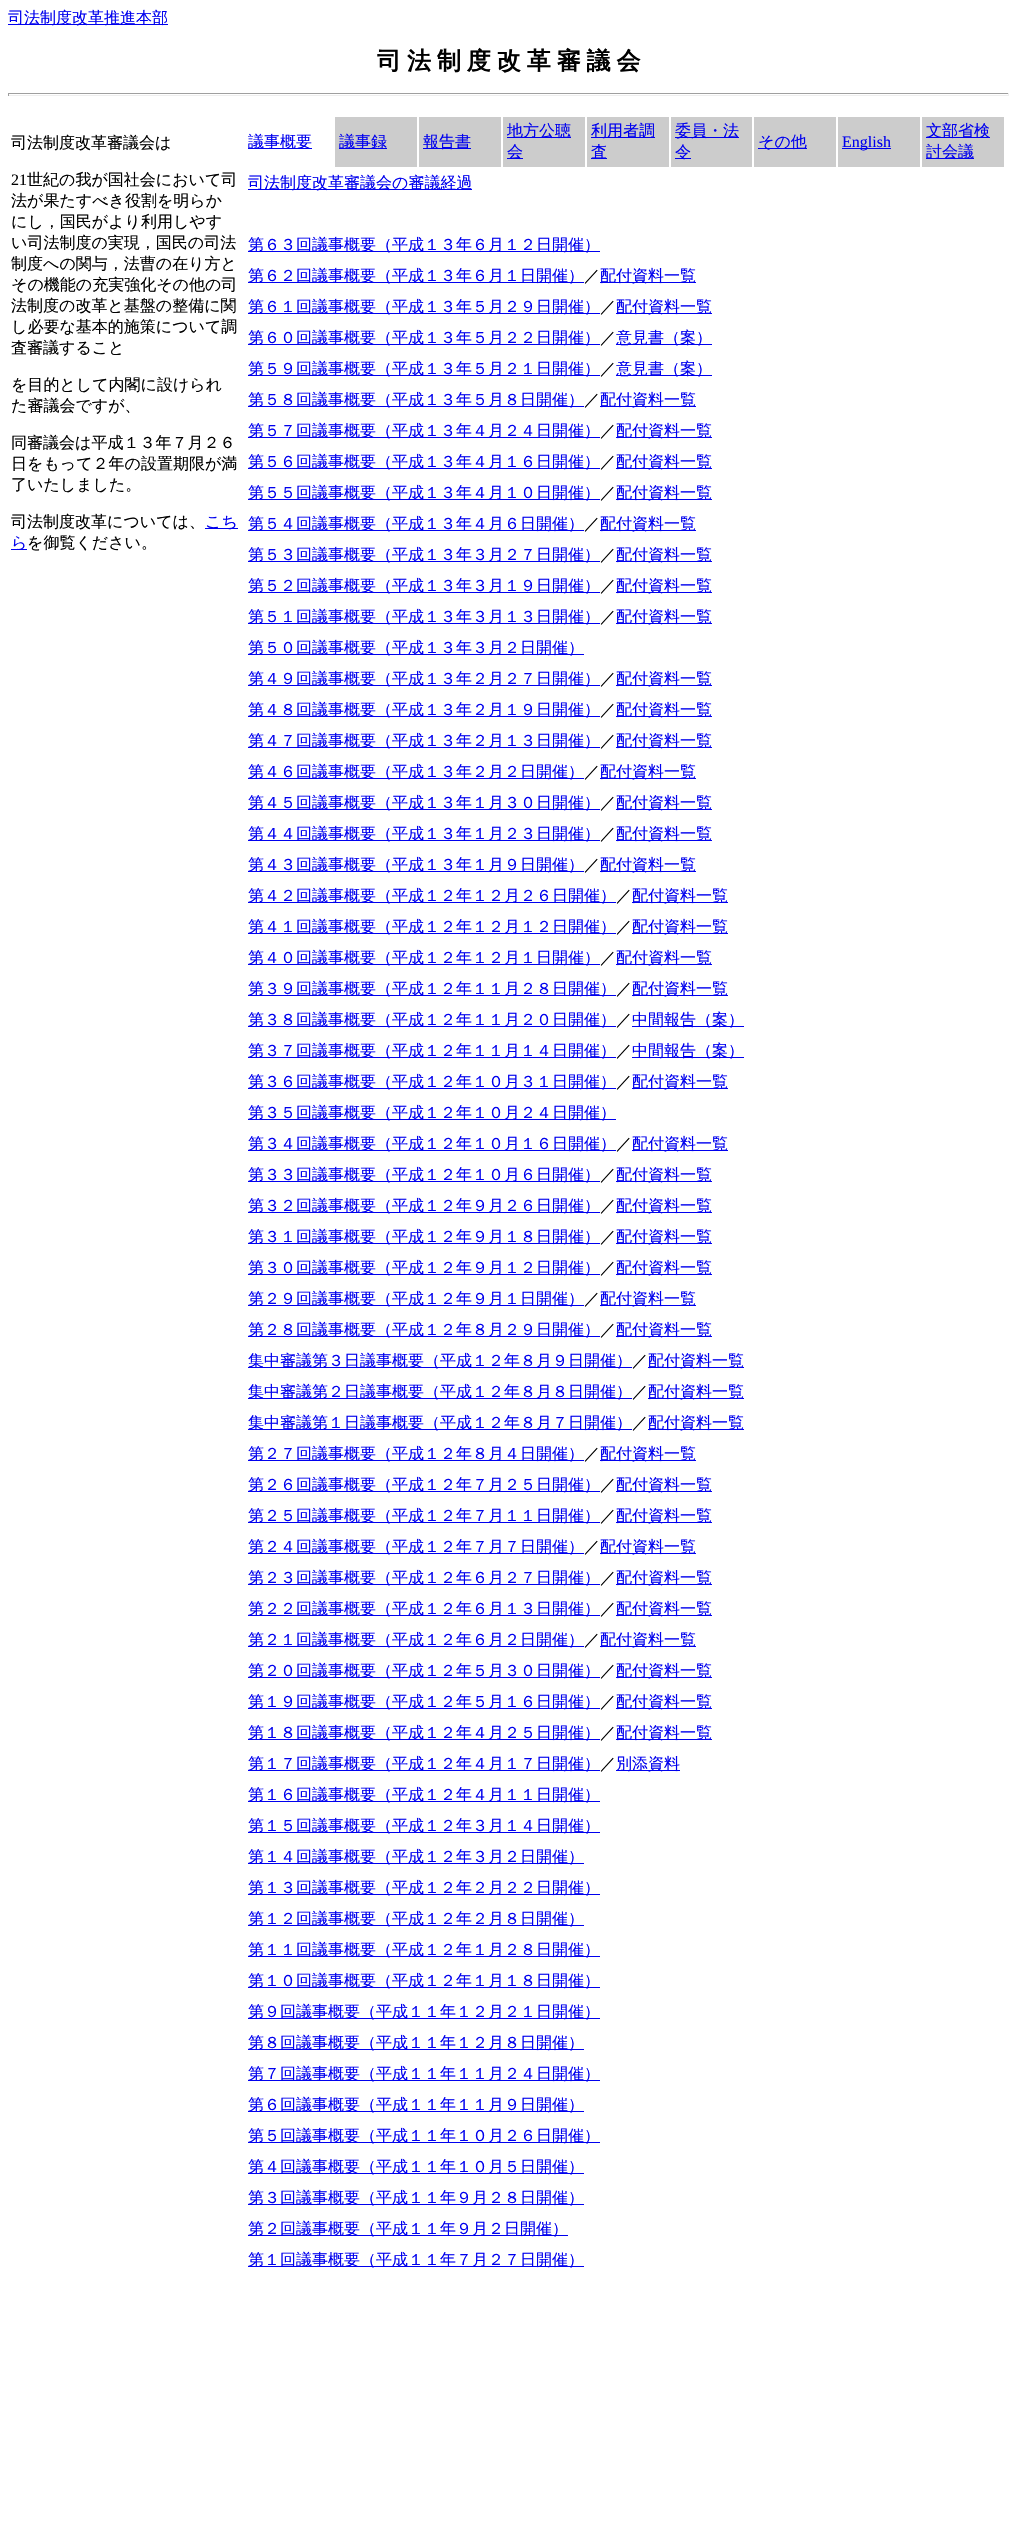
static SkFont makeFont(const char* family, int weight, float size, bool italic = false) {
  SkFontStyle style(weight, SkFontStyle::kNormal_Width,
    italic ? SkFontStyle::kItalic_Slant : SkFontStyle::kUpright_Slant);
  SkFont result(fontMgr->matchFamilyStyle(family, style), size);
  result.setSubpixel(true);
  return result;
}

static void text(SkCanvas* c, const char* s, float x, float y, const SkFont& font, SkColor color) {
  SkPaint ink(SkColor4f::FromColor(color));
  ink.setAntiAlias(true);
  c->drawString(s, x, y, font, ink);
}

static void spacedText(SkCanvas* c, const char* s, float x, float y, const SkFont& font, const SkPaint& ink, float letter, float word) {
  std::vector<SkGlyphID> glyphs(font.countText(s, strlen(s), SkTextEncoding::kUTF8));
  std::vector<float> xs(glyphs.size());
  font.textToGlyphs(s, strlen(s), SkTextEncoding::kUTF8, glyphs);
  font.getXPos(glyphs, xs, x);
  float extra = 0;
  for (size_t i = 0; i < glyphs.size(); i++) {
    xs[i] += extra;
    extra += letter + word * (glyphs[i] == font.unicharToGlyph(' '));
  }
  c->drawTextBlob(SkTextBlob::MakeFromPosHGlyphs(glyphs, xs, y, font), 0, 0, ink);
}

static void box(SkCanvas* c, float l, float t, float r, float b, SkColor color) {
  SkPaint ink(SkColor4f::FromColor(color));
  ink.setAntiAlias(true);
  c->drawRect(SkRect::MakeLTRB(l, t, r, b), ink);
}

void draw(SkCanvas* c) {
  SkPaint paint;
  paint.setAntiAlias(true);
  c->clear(0xffffffff);
  box(c, 8, 24, 168, 25, 0xff0000ee);
  SkFont face1 = makeFont("WenQuanYi Zen Hei", 500, 16);
  text(c, "司法制度改革推進本部", 8, 23, face1, 0xff0000ee);
  SkFont face2 = makeFont("WenQuanYi Zen Hei", 700, 24);
  paint.setColor(0xff000000);
  spacedText(c, "司 法 制 度 改 革 審 議 会", 377, 69, face2, paint, 0, -1.25f);
  box(c, 8, 93, 1009, 94, 0xff9f9f9f);
  box(c, 1008, 93, 1009, 96, 0xffeeeeee);
  box(c, 8, 95, 1009, 96, 0xffeeeeee);
  box(c, 8, 93, 9, 96, 0xff9f9f9f);
  text(c, "司法制度改革審議会は", 11, 148, face1, 0xff000000);
  SkFont face3 = makeFont("Liberation Serif", 400, 16);
  text(c, "21", 11, 185, face3, 0xff000000);
  text(c, "世紀の我が国社会において司", 27, 185, face1, 0xff000000);
  text(c, "法が果たすべき役割を明らか", 11, 206, face1, 0xff000000);
  text(c, "にし，国民がより利用しやす", 11, 227, face1, 0xff000000);
  text(c, "い司法制度の実現，国民の司法", 11, 248, face1, 0xff000000);
  text(c, "制度への関与，法曹の在り方と", 11, 269, face1, 0xff000000);
  text(c, "その機能の充実強化その他の司", 11, 290, face1, 0xff000000);
  text(c, "法制度の改革と基盤の整備に関", 11, 311, face1, 0xff000000);
  text(c, "し必要な基本的施策について調", 11, 332, face1, 0xff000000);
  text(c, "査審議すること", 11, 353, face1, 0xff000000);
  text(c, "を目的として内閣に設けられ", 11, 390, face1, 0xff000000);
  text(c, "た審議会ですが、", 11, 411, face1, 0xff000000);
  text(c, "同審議会は平成１３年７月２６", 11, 448, face1, 0xff000000);
  text(c, "日をもって２年の設置期限が満", 11, 469, face1, 0xff000000);
  text(c, "了いたしました。", 11, 490, face1, 0xff000000);
  text(c, "司法制度改革については、", 11, 527, face1, 0xff000000);
  box(c, 205, 528, 238, 529, 0xff0000ee);
  text(c, "こち", 205, 527, face1, 0xff0000ee);
  box(c, 11, 549, 27, 550, 0xff0000ee);
  text(c, "ら", 11, 548, face1, 0xff0000ee);
  text(c, "を御覧ください。", 27, 548, face1, 0xff000000);
  box(c, 248, 148, 312, 149, 0xff0000ee);
  text(c, "議事概要", 248, 147, face1, 0xff0000ee);
  box(c, 335, 117, 417, 167, 0xffcccccc);
  box(c, 339, 148, 387, 149, 0xff0000ee);
  text(c, "議事録", 339, 147, face1, 0xff0000ee);
  box(c, 419, 117, 501, 167, 0xffcccccc);
  box(c, 423, 148, 471, 149, 0xff0000ee);
  text(c, "報告書", 423, 147, face1, 0xff0000ee);
  box(c, 503, 117, 585, 167, 0xffcccccc);
  box(c, 507, 137, 571, 138, 0xff0000ee);
  text(c, "地方公聴", 507, 136, face1, 0xff0000ee);
  box(c, 507, 158, 523, 159, 0xff0000ee);
  text(c, "会", 507, 157, face1, 0xff0000ee);
  box(c, 587, 117, 669, 167, 0xffcccccc);
  box(c, 591, 137, 655, 138, 0xff0000ee);
  text(c, "利用者調", 591, 136, face1, 0xff0000ee);
  box(c, 591, 158, 607, 159, 0xff0000ee);
  text(c, "査", 591, 157, face1, 0xff0000ee);
  box(c, 671, 117, 752, 167, 0xffcccccc);
  box(c, 675, 137, 739, 138, 0xff0000ee);
  text(c, "委員・法", 675, 136, face1, 0xff0000ee);
  box(c, 675, 158, 691, 159, 0xff0000ee);
  text(c, "令", 675, 157, face1, 0xff0000ee);
  box(c, 754, 117, 836, 167, 0xffcccccc);
  box(c, 758, 148, 807, 149, 0xff0000ee);
  text(c, "その他", 758, 147, face1, 0xff0000ee);
  box(c, 838, 117, 920, 167, 0xffcccccc);
  box(c, 842, 148, 891, 149, 0xff0000ee);
  text(c, "English", 842, 147, face3, 0xff0000ee);
  box(c, 922, 117, 1004, 167, 0xffcccccc);
  box(c, 926, 137, 990, 138, 0xff0000ee);
  text(c, "文部省検", 926, 136, face1, 0xff0000ee);
  box(c, 926, 158, 974, 159, 0xff0000ee);
  text(c, "討会議", 926, 157, face1, 0xff0000ee);
  box(c, 248, 189, 472, 190, 0xff0000ee);
  text(c, "司法制度改革審議会の審議経過", 248, 188, face1, 0xff0000ee);
  box(c, 248, 251, 600, 252, 0xff0000ee);
  text(c, "第６３回議事概要（平成１３年６月１２日開催）", 248, 250, face1, 0xff0000ee);
  box(c, 248, 282, 584, 283, 0xff0000ee);
  text(c, "第６２回議事概要（平成１３年６月１日開催）", 248, 281, face1, 0xff0000ee);
  text(c, "／", 584, 281, face1, 0xff000000);
  box(c, 600, 282, 696, 283, 0xff0000ee);
  text(c, "配付資料一覧", 600, 281, face1, 0xff0000ee);
  box(c, 248, 313, 600, 314, 0xff0000ee);
  text(c, "第６１回議事概要（平成１３年５月２９日開催）", 248, 312, face1, 0xff0000ee);
  text(c, "／", 600, 312, face1, 0xff000000);
  box(c, 616, 313, 712, 314, 0xff0000ee);
  text(c, "配付資料一覧", 616, 312, face1, 0xff0000ee);
  box(c, 248, 344, 600, 345, 0xff0000ee);
  text(c, "第６０回議事概要（平成１３年５月２２日開催）", 248, 343, face1, 0xff0000ee);
  text(c, "／", 600, 343, face1, 0xff000000);
  box(c, 616, 344, 712, 345, 0xff0000ee);
  text(c, "意見書（案）", 616, 343, face1, 0xff0000ee);
  box(c, 248, 375, 600, 376, 0xff0000ee);
  text(c, "第５９回議事概要（平成１３年５月２１日開催）", 248, 374, face1, 0xff0000ee);
  text(c, "／", 600, 374, face1, 0xff000000);
  box(c, 616, 375, 712, 376, 0xff0000ee);
  text(c, "意見書（案）", 616, 374, face1, 0xff0000ee);
  box(c, 248, 406, 584, 407, 0xff0000ee);
  text(c, "第５８回議事概要（平成１３年５月８日開催）", 248, 405, face1, 0xff0000ee);
  text(c, "／", 584, 405, face1, 0xff000000);
  box(c, 600, 406, 696, 407, 0xff0000ee);
  text(c, "配付資料一覧", 600, 405, face1, 0xff0000ee);
  box(c, 248, 437, 600, 438, 0xff0000ee);
  text(c, "第５７回議事概要（平成１３年４月２４日開催）", 248, 436, face1, 0xff0000ee);
  text(c, "／", 600, 436, face1, 0xff000000);
  box(c, 616, 437, 712, 438, 0xff0000ee);
  text(c, "配付資料一覧", 616, 436, face1, 0xff0000ee);
  box(c, 248, 468, 600, 469, 0xff0000ee);
  text(c, "第５６回議事概要（平成１３年４月１６日開催）", 248, 467, face1, 0xff0000ee);
  text(c, "／", 600, 467, face1, 0xff000000);
  box(c, 616, 468, 712, 469, 0xff0000ee);
  text(c, "配付資料一覧", 616, 467, face1, 0xff0000ee);
  box(c, 248, 499, 600, 500, 0xff0000ee);
  text(c, "第５５回議事概要（平成１３年４月１０日開催）", 248, 498, face1, 0xff0000ee);
  text(c, "／", 600, 498, face1, 0xff000000);
  box(c, 616, 499, 712, 500, 0xff0000ee);
  text(c, "配付資料一覧", 616, 498, face1, 0xff0000ee);
  box(c, 248, 530, 584, 531, 0xff0000ee);
  text(c, "第５４回議事概要（平成１３年４月６日開催）", 248, 529, face1, 0xff0000ee);
  text(c, "／", 584, 529, face1, 0xff000000);
  box(c, 600, 530, 696, 531, 0xff0000ee);
  text(c, "配付資料一覧", 600, 529, face1, 0xff0000ee);
  box(c, 248, 561, 600, 562, 0xff0000ee);
  text(c, "第５３回議事概要（平成１３年３月２７日開催）", 248, 560, face1, 0xff0000ee);
  text(c, "／", 600, 560, face1, 0xff000000);
  box(c, 616, 561, 712, 562, 0xff0000ee);
  text(c, "配付資料一覧", 616, 560, face1, 0xff0000ee);
  box(c, 248, 592, 600, 593, 0xff0000ee);
  text(c, "第５２回議事概要（平成１３年３月１９日開催）", 248, 591, face1, 0xff0000ee);
  text(c, "／", 600, 591, face1, 0xff000000);
  box(c, 616, 592, 712, 593, 0xff0000ee);
  text(c, "配付資料一覧", 616, 591, face1, 0xff0000ee);
  box(c, 248, 623, 600, 624, 0xff0000ee);
  text(c, "第５１回議事概要（平成１３年３月１３日開催）", 248, 622, face1, 0xff0000ee);
  text(c, "／", 600, 622, face1, 0xff000000);
  box(c, 616, 623, 712, 624, 0xff0000ee);
  text(c, "配付資料一覧", 616, 622, face1, 0xff0000ee);
  box(c, 248, 654, 584, 655, 0xff0000ee);
  text(c, "第５０回議事概要（平成１３年３月２日開催）", 248, 653, face1, 0xff0000ee);
  box(c, 248, 685, 600, 686, 0xff0000ee);
  text(c, "第４９回議事概要（平成１３年２月２７日開催）", 248, 684, face1, 0xff0000ee);
  text(c, "／", 600, 684, face1, 0xff000000);
  box(c, 616, 685, 712, 686, 0xff0000ee);
  text(c, "配付資料一覧", 616, 684, face1, 0xff0000ee);
  box(c, 248, 716, 600, 717, 0xff0000ee);
  text(c, "第４８回議事概要（平成１３年２月１９日開催）", 248, 715, face1, 0xff0000ee);
  text(c, "／", 600, 715, face1, 0xff000000);
  box(c, 616, 716, 712, 717, 0xff0000ee);
  text(c, "配付資料一覧", 616, 715, face1, 0xff0000ee);
  box(c, 248, 747, 600, 748, 0xff0000ee);
  text(c, "第４７回議事概要（平成１３年２月１３日開催）", 248, 746, face1, 0xff0000ee);
  text(c, "／", 600, 746, face1, 0xff000000);
  box(c, 616, 747, 712, 748, 0xff0000ee);
  text(c, "配付資料一覧", 616, 746, face1, 0xff0000ee);
  box(c, 248, 778, 584, 779, 0xff0000ee);
  text(c, "第４６回議事概要（平成１３年２月２日開催）", 248, 777, face1, 0xff0000ee);
  text(c, "／", 584, 777, face1, 0xff000000);
  box(c, 600, 778, 696, 779, 0xff0000ee);
  text(c, "配付資料一覧", 600, 777, face1, 0xff0000ee);
  box(c, 248, 809, 600, 810, 0xff0000ee);
  text(c, "第４５回議事概要（平成１３年１月３０日開催）", 248, 808, face1, 0xff0000ee);
  text(c, "／", 600, 808, face1, 0xff000000);
  box(c, 616, 809, 712, 810, 0xff0000ee);
  text(c, "配付資料一覧", 616, 808, face1, 0xff0000ee);
  box(c, 248, 840, 600, 841, 0xff0000ee);
  text(c, "第４４回議事概要（平成１３年１月２３日開催）", 248, 839, face1, 0xff0000ee);
  text(c, "／", 600, 839, face1, 0xff000000);
  box(c, 616, 840, 712, 841, 0xff0000ee);
  text(c, "配付資料一覧", 616, 839, face1, 0xff0000ee);
  box(c, 248, 871, 584, 872, 0xff0000ee);
  text(c, "第４３回議事概要（平成１３年１月９日開催）", 248, 870, face1, 0xff0000ee);
  text(c, "／", 584, 870, face1, 0xff000000);
  box(c, 600, 871, 696, 872, 0xff0000ee);
  text(c, "配付資料一覧", 600, 870, face1, 0xff0000ee);
  box(c, 248, 902, 616, 903, 0xff0000ee);
  text(c, "第４２回議事概要（平成１２年１２月２６日開催）", 248, 901, face1, 0xff0000ee);
  text(c, "／", 616, 901, face1, 0xff000000);
  box(c, 632, 902, 728, 903, 0xff0000ee);
  text(c, "配付資料一覧", 632, 901, face1, 0xff0000ee);
  box(c, 248, 933, 616, 934, 0xff0000ee);
  text(c, "第４１回議事概要（平成１２年１２月１２日開催）", 248, 932, face1, 0xff0000ee);
  text(c, "／", 616, 932, face1, 0xff000000);
  box(c, 632, 933, 728, 934, 0xff0000ee);
  text(c, "配付資料一覧", 632, 932, face1, 0xff0000ee);
  box(c, 248, 964, 600, 965, 0xff0000ee);
  text(c, "第４０回議事概要（平成１２年１２月１日開催）", 248, 963, face1, 0xff0000ee);
  text(c, "／", 600, 963, face1, 0xff000000);
  box(c, 616, 964, 712, 965, 0xff0000ee);
  text(c, "配付資料一覧", 616, 963, face1, 0xff0000ee);
  box(c, 248, 995, 616, 996, 0xff0000ee);
  text(c, "第３９回議事概要（平成１２年１１月２８日開催）", 248, 994, face1, 0xff0000ee);
  text(c, "／", 616, 994, face1, 0xff000000);
  box(c, 632, 995, 728, 996, 0xff0000ee);
  text(c, "配付資料一覧", 632, 994, face1, 0xff0000ee);
  box(c, 248, 1026, 616, 1027, 0xff0000ee);
  text(c, "第３８回議事概要（平成１２年１１月２０日開催）", 248, 1025, face1, 0xff0000ee);
  text(c, "／", 616, 1025, face1, 0xff000000);
  box(c, 632, 1026, 744, 1027, 0xff0000ee);
  text(c, "中間報告（案）", 632, 1025, face1, 0xff0000ee);
  box(c, 248, 1057, 616, 1058, 0xff0000ee);
  text(c, "第３７回議事概要（平成１２年１１月１４日開催）", 248, 1056, face1, 0xff0000ee);
  text(c, "／", 616, 1056, face1, 0xff000000);
  box(c, 632, 1057, 744, 1058, 0xff0000ee);
  text(c, "中間報告（案）", 632, 1056, face1, 0xff0000ee);
  box(c, 248, 1088, 616, 1089, 0xff0000ee);
  text(c, "第３６回議事概要（平成１２年１０月３１日開催）", 248, 1087, face1, 0xff0000ee);
  text(c, "／", 616, 1087, face1, 0xff000000);
  box(c, 632, 1088, 728, 1089, 0xff0000ee);
  text(c, "配付資料一覧", 632, 1087, face1, 0xff0000ee);
  box(c, 248, 1119, 616, 1120, 0xff0000ee);
  text(c, "第３５回議事概要（平成１２年１０月２４日開催）", 248, 1118, face1, 0xff0000ee);
  box(c, 248, 1150, 616, 1151, 0xff0000ee);
  text(c, "第３４回議事概要（平成１２年１０月１６日開催）", 248, 1149, face1, 0xff0000ee);
  text(c, "／", 616, 1149, face1, 0xff000000);
  box(c, 632, 1150, 728, 1151, 0xff0000ee);
  text(c, "配付資料一覧", 632, 1149, face1, 0xff0000ee);
  box(c, 248, 1181, 600, 1182, 0xff0000ee);
  text(c, "第３３回議事概要（平成１２年１０月６日開催）", 248, 1180, face1, 0xff0000ee);
  text(c, "／", 600, 1180, face1, 0xff000000);
  box(c, 616, 1181, 712, 1182, 0xff0000ee);
  text(c, "配付資料一覧", 616, 1180, face1, 0xff0000ee);
  box(c, 248, 1212, 600, 1213, 0xff0000ee);
  text(c, "第３２回議事概要（平成１２年９月２６日開催）", 248, 1211, face1, 0xff0000ee);
  text(c, "／", 600, 1211, face1, 0xff000000);
  box(c, 616, 1212, 712, 1213, 0xff0000ee);
  text(c, "配付資料一覧", 616, 1211, face1, 0xff0000ee);
  box(c, 248, 1243, 600, 1244, 0xff0000ee);
  text(c, "第３１回議事概要（平成１２年９月１８日開催）", 248, 1242, face1, 0xff0000ee);
  text(c, "／", 600, 1242, face1, 0xff000000);
  box(c, 616, 1243, 712, 1244, 0xff0000ee);
  text(c, "配付資料一覧", 616, 1242, face1, 0xff0000ee);
  box(c, 248, 1274, 600, 1275, 0xff0000ee);
  text(c, "第３０回議事概要（平成１２年９月１２日開催）", 248, 1273, face1, 0xff0000ee);
  text(c, "／", 600, 1273, face1, 0xff000000);
  box(c, 616, 1274, 712, 1275, 0xff0000ee);
  text(c, "配付資料一覧", 616, 1273, face1, 0xff0000ee);
  box(c, 248, 1305, 584, 1306, 0xff0000ee);
  text(c, "第２９回議事概要（平成１２年９月１日開催）", 248, 1304, face1, 0xff0000ee);
  text(c, "／", 584, 1304, face1, 0xff000000);
  box(c, 600, 1305, 696, 1306, 0xff0000ee);
  text(c, "配付資料一覧", 600, 1304, face1, 0xff0000ee);
  box(c, 248, 1336, 600, 1337, 0xff0000ee);
  text(c, "第２８回議事概要（平成１２年８月２９日開催）", 248, 1335, face1, 0xff0000ee);
  text(c, "／", 600, 1335, face1, 0xff000000);
  box(c, 616, 1336, 712, 1337, 0xff0000ee);
  text(c, "配付資料一覧", 616, 1335, face1, 0xff0000ee);
  box(c, 248, 1367, 632, 1368, 0xff0000ee);
  text(c, "集中審議第３日議事概要（平成１２年８月９日開催）", 248, 1366, face1, 0xff0000ee);
  text(c, "／", 632, 1366, face1, 0xff000000);
  box(c, 648, 1367, 744, 1368, 0xff0000ee);
  text(c, "配付資料一覧", 648, 1366, face1, 0xff0000ee);
  box(c, 248, 1398, 632, 1399, 0xff0000ee);
  text(c, "集中審議第２日議事概要（平成１２年８月８日開催）", 248, 1397, face1, 0xff0000ee);
  text(c, "／", 632, 1397, face1, 0xff000000);
  box(c, 648, 1398, 744, 1399, 0xff0000ee);
  text(c, "配付資料一覧", 648, 1397, face1, 0xff0000ee);
  box(c, 248, 1429, 632, 1430, 0xff0000ee);
  text(c, "集中審議第１日議事概要（平成１２年８月７日開催）", 248, 1428, face1, 0xff0000ee);
  text(c, "／", 632, 1428, face1, 0xff000000);
  box(c, 648, 1429, 744, 1430, 0xff0000ee);
  text(c, "配付資料一覧", 648, 1428, face1, 0xff0000ee);
  box(c, 248, 1460, 584, 1461, 0xff0000ee);
  text(c, "第２７回議事概要（平成１２年８月４日開催）", 248, 1459, face1, 0xff0000ee);
  text(c, "／", 584, 1459, face1, 0xff000000);
  box(c, 600, 1460, 696, 1461, 0xff0000ee);
  text(c, "配付資料一覧", 600, 1459, face1, 0xff0000ee);
  box(c, 248, 1491, 600, 1492, 0xff0000ee);
  text(c, "第２６回議事概要（平成１２年７月２５日開催）", 248, 1490, face1, 0xff0000ee);
  text(c, "／", 600, 1490, face1, 0xff000000);
  box(c, 616, 1491, 712, 1492, 0xff0000ee);
  text(c, "配付資料一覧", 616, 1490, face1, 0xff0000ee);
  box(c, 248, 1522, 600, 1523, 0xff0000ee);
  text(c, "第２５回議事概要（平成１２年７月１１日開催）", 248, 1521, face1, 0xff0000ee);
  text(c, "／", 600, 1521, face1, 0xff000000);
  box(c, 616, 1522, 712, 1523, 0xff0000ee);
  text(c, "配付資料一覧", 616, 1521, face1, 0xff0000ee);
  box(c, 248, 1553, 584, 1554, 0xff0000ee);
  text(c, "第２４回議事概要（平成１２年７月７日開催）", 248, 1552, face1, 0xff0000ee);
  text(c, "／", 584, 1552, face1, 0xff000000);
  box(c, 600, 1553, 696, 1554, 0xff0000ee);
  text(c, "配付資料一覧", 600, 1552, face1, 0xff0000ee);
  box(c, 248, 1584, 600, 1585, 0xff0000ee);
  text(c, "第２３回議事概要（平成１２年６月２７日開催）", 248, 1583, face1, 0xff0000ee);
  text(c, "／", 600, 1583, face1, 0xff000000);
  box(c, 616, 1584, 712, 1585, 0xff0000ee);
  text(c, "配付資料一覧", 616, 1583, face1, 0xff0000ee);
  box(c, 248, 1615, 600, 1616, 0xff0000ee);
  text(c, "第２２回議事概要（平成１２年６月１３日開催）", 248, 1614, face1, 0xff0000ee);
  text(c, "／", 600, 1614, face1, 0xff000000);
  box(c, 616, 1615, 712, 1616, 0xff0000ee);
  text(c, "配付資料一覧", 616, 1614, face1, 0xff0000ee);
  box(c, 248, 1646, 584, 1647, 0xff0000ee);
  text(c, "第２１回議事概要（平成１２年６月２日開催）", 248, 1645, face1, 0xff0000ee);
  text(c, "／", 584, 1645, face1, 0xff000000);
  box(c, 600, 1646, 696, 1647, 0xff0000ee);
  text(c, "配付資料一覧", 600, 1645, face1, 0xff0000ee);
  box(c, 248, 1677, 600, 1678, 0xff0000ee);
  text(c, "第２０回議事概要（平成１２年５月３０日開催）", 248, 1676, face1, 0xff0000ee);
  text(c, "／", 600, 1676, face1, 0xff000000);
  box(c, 616, 1677, 712, 1678, 0xff0000ee);
  text(c, "配付資料一覧", 616, 1676, face1, 0xff0000ee);
  box(c, 248, 1708, 600, 1709, 0xff0000ee);
  text(c, "第１９回議事概要（平成１２年５月１６日開催）", 248, 1707, face1, 0xff0000ee);
  text(c, "／", 600, 1707, face1, 0xff000000);
  box(c, 616, 1708, 712, 1709, 0xff0000ee);
  text(c, "配付資料一覧", 616, 1707, face1, 0xff0000ee);
  box(c, 248, 1739, 600, 1740, 0xff0000ee);
  text(c, "第１８回議事概要（平成１２年４月２５日開催）", 248, 1738, face1, 0xff0000ee);
  text(c, "／", 600, 1738, face1, 0xff000000);
  box(c, 616, 1739, 712, 1740, 0xff0000ee);
  text(c, "配付資料一覧", 616, 1738, face1, 0xff0000ee);
  box(c, 248, 1770, 600, 1771, 0xff0000ee);
  text(c, "第１７回議事概要（平成１２年４月１７日開催）", 248, 1769, face1, 0xff0000ee);
  text(c, "／", 600, 1769, face1, 0xff000000);
  box(c, 616, 1770, 680, 1771, 0xff0000ee);
  text(c, "別添資料", 616, 1769, face1, 0xff0000ee);
  box(c, 248, 1801, 600, 1802, 0xff0000ee);
  text(c, "第１６回議事概要（平成１２年４月１１日開催）", 248, 1800, face1, 0xff0000ee);
  box(c, 248, 1832, 600, 1833, 0xff0000ee);
  text(c, "第１５回議事概要（平成１２年３月１４日開催）", 248, 1831, face1, 0xff0000ee);
  box(c, 248, 1863, 584, 1864, 0xff0000ee);
  text(c, "第１４回議事概要（平成１２年３月２日開催）", 248, 1862, face1, 0xff0000ee);
  box(c, 248, 1894, 600, 1895, 0xff0000ee);
  text(c, "第１３回議事概要（平成１２年２月２２日開催）", 248, 1893, face1, 0xff0000ee);
  box(c, 248, 1925, 584, 1926, 0xff0000ee);
  text(c, "第１２回議事概要（平成１２年２月８日開催）", 248, 1924, face1, 0xff0000ee);
  box(c, 248, 1956, 600, 1957, 0xff0000ee);
  text(c, "第１１回議事概要（平成１２年１月２８日開催）", 248, 1955, face1, 0xff0000ee);
  box(c, 248, 1987, 600, 1988, 0xff0000ee);
  text(c, "第１０回議事概要（平成１２年１月１８日開催）", 248, 1986, face1, 0xff0000ee);
  box(c, 248, 2018, 600, 2019, 0xff0000ee);
  text(c, "第９回議事概要（平成１１年１２月２１日開催）", 248, 2017, face1, 0xff0000ee);
  box(c, 248, 2049, 584, 2050, 0xff0000ee);
  text(c, "第８回議事概要（平成１１年１２月８日開催）", 248, 2048, face1, 0xff0000ee);
  box(c, 248, 2080, 600, 2081, 0xff0000ee);
  text(c, "第７回議事概要（平成１１年１１月２４日開催）", 248, 2079, face1, 0xff0000ee);
  box(c, 248, 2111, 584, 2112, 0xff0000ee);
  text(c, "第６回議事概要（平成１１年１１月９日開催）", 248, 2110, face1, 0xff0000ee);
  box(c, 248, 2142, 600, 2143, 0xff0000ee);
  text(c, "第５回議事概要（平成１１年１０月２６日開催）", 248, 2141, face1, 0xff0000ee);
  box(c, 248, 2173, 584, 2174, 0xff0000ee);
  text(c, "第４回議事概要（平成１１年１０月５日開催）", 248, 2172, face1, 0xff0000ee);
  box(c, 248, 2204, 584, 2205, 0xff0000ee);
  text(c, "第３回議事概要（平成１１年９月２８日開催）", 248, 2203, face1, 0xff0000ee);
  box(c, 248, 2235, 568, 2236, 0xff0000ee);
  text(c, "第２回議事概要（平成１１年９月２日開催）", 248, 2234, face1, 0xff0000ee);
  box(c, 248, 2266, 584, 2267, 0xff0000ee);
  text(c, "第１回議事概要（平成１１年７月２７日開催）", 248, 2265, face1, 0xff0000ee);
}
